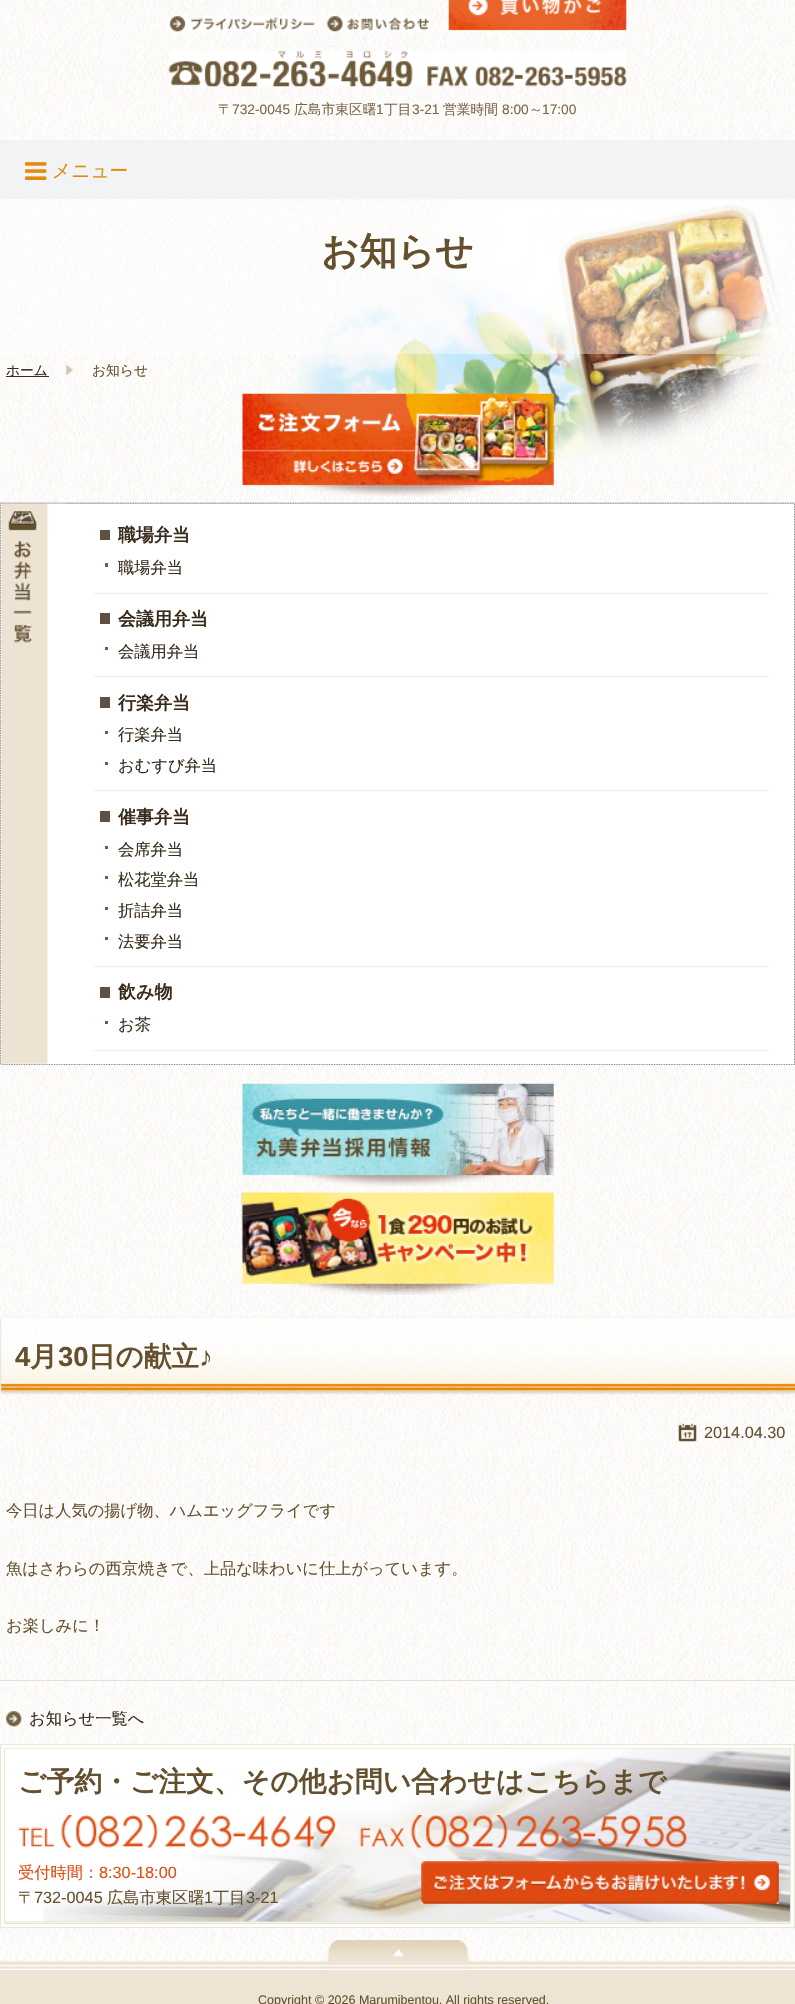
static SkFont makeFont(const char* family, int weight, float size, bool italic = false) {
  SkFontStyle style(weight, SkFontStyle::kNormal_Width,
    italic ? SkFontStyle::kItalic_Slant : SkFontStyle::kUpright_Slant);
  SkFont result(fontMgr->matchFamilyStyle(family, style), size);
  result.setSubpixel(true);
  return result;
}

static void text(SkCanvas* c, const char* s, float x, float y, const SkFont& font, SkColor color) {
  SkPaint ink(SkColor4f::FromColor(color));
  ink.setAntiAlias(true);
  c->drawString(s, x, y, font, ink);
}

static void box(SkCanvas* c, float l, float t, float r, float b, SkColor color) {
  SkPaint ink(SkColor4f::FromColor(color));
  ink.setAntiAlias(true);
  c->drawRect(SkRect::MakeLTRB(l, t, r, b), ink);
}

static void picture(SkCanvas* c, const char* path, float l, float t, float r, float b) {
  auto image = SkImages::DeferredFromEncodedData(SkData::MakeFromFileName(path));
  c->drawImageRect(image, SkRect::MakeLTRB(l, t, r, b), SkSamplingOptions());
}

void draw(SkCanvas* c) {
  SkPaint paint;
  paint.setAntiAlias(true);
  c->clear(0xffffffff);
  picture(c, "img_01.png", 0, 0, 795, 1940);
  picture(c, "img_02.png", 169, 16, 315, 32);
  picture(c, "img_03.png", 327, 16, 431, 32);
  picture(c, "img_04.png", 448, 0, 627, 32);
  picture(c, "img_05.png", 168, 51, 627, 87);
  SkFont face1 = makeFont("WenQuanYi Zen Hei", 500, 13.75f);
  text(c, "〒", 218, 114, face1, 0xff7c6847);
  SkFont face2 = makeFont("Liberation Sans", 400, 13.75f);
  text(c, "732-0045", 232, 114, face2, 0xff7c6847);
  text(c, "広島市東区曙", 294, 114, face1, 0xff7c6847);
  text(c, "1", 376, 114, face2, 0xff7c6847);
  text(c, "丁目", 384, 114, face1, 0xff7c6847);
  text(c, "3-21", 412, 114, face2, 0xff7c6847);
  text(c, "営業時間", 443, 114, face1, 0xff7c6847);
  text(c, "8:00", 502, 114, face2, 0xff7c6847);
  text(c, "～", 529, 114, face1, 0xff7c6847);
  text(c, "17:00", 542, 114, face2, 0xff7c6847);
  box(c, 0, 140, 795, 199, 0xfff2f3f4);
  picture(c, "img_06.png", 25, 162, 47, 180);
  SkFont face3 = makeFont("WenQuanYi Zen Hei", 500, 18.75f);
  text(c, "メニュー", 52, 177, face3, 0xffe38a0d);
  picture(c, "img_07.png", 282, 199, 795, 462);
  box(c, 0, 199, 795, 354, 0x66ffffff);
  SkFont face4 = makeFont("WenQuanYi Zen Hei", 700, 37.5f);
  text(c, "お知らせ", 321, 264, face4, 0xff65502e);
  box(c, 6, 376, 49, 377, 0xff382b1c);
  text(c, "ホーム", 6, 375, face1, 0xff382b1c);
  picture(c, "img_08.png", 66, 365, 73, 375);
  text(c, "お知らせ", 92, 375, face1, 0xff65502e);
  picture(c, "img_09.png", 241, 393, 554, 497);
  picture(c, "img_10.png", 0, 502, 795, 1065);
  box(c, 1, 504, 794, 1064, 0xffffffff);
  picture(c, "img_11.png", 1, 503, 65, 1064);
  picture(c, "img_12.png", 8, 511, 37, 643);
  box(c, 94, 593, 769, 594, 0xffededed);
  box(c, 100, 530, 110, 540, 0xff5e5143);
  SkFont face5 = makeFont("WenQuanYi Zen Hei", 700, 18);
  text(c, "職場弁当", 118, 541, face5, 0xff382b1c);
  box(c, 105, 563, 108, 567, 0xff695d50);
  SkFont face6 = makeFont("WenQuanYi Zen Hei", 500, 16.25f);
  text(c, "職場弁当", 118, 573, face6, 0xff382b1c);
  box(c, 94, 676, 769, 677, 0xffededed);
  box(c, 100, 613, 110, 624, 0xff5e5143);
  text(c, "会議用弁当", 118, 625, face5, 0xff382b1c);
  box(c, 105, 647, 108, 650, 0xff695d50);
  text(c, "会議用弁当", 118, 657, face6, 0xff382b1c);
  box(c, 94, 790, 769, 791, 0xffededed);
  box(c, 100, 697, 110, 708, 0xff5e5143);
  text(c, "行楽弁当", 118, 709, face5, 0xff382b1c);
  box(c, 105, 731, 108, 734, 0xff695d50);
  text(c, "行楽弁当", 118, 740, face6, 0xff382b1c);
  box(c, 105, 762, 108, 765, 0xff695d50);
  text(c, "おむすび弁当", 118, 771, face6, 0xff382b1c);
  box(c, 94, 966, 769, 967, 0xffededed);
  box(c, 100, 811, 110, 822, 0xff5e5143);
  text(c, "催事弁当", 118, 823, face5, 0xff382b1c);
  box(c, 105, 846, 108, 849, 0xff695d50);
  text(c, "会席弁当", 118, 855, face6, 0xff382b1c);
  box(c, 105, 876, 108, 879, 0xff695d50);
  text(c, "松花堂弁当", 118, 885, face6, 0xff382b1c);
  box(c, 105, 907, 108, 910, 0xff695d50);
  text(c, "折詰弁当", 118, 916, face6, 0xff382b1c);
  box(c, 105, 937, 108, 940, 0xff695d50);
  text(c, "法要弁当", 118, 947, face6, 0xff382b1c);
  box(c, 94, 1050, 769, 1051, 0xffededed);
  box(c, 100, 987, 110, 998, 0xff5e5143);
  text(c, "飲み物", 118, 998, face5, 0xff382b1c);
  box(c, 105, 1021, 108, 1024, 0xff695d50);
  text(c, "お茶", 118, 1030, face6, 0xff382b1c);
  picture(c, "img_13.png", 241, 1083, 554, 1187);
  picture(c, "img_14.png", 241, 1192, 554, 1295);
  picture(c, "img_15.png", 0, 1316, 795, 1395);
  SkFont face7 = makeFont("Liberation Sans", 700, 27.5f);
  text(c, "4", 15, 1366, face7, 0xff65502e);
  SkFont face8 = makeFont("WenQuanYi Zen Hei", 700, 27.5f);
  text(c, "月", 30, 1366, face8, 0xff65502e);
  text(c, "30", 58, 1366, face7, 0xff65502e);
  text(c, "日の献立", 88, 1366, face8, 0xff65502e);
  text(c, "♪", 199, 1366, face7, 0xff65502e);
  picture(c, "img_16.png", 678, 1423, 697, 1442);
  SkFont face9 = makeFont("Liberation Sans", 400, 16.25f);
  text(c, "2014.04.30", 704, 1438, face9, 0xff65502e);
  text(c, "今日は人気の揚げ物、ハムエッグフライです", 6, 1516, face6, 0xff65502e);
  text(c, "魚はさわらの西京焼きで、上品な味わいに仕上がっています。", 6, 1574, face6, 0xff65502e);
  text(c, "お楽しみに！", 6, 1631, face6, 0xff65502e);
  box(c, 0, 1680, 795, 1681, 0xffe0e0e0);
  picture(c, "img_17.png", 6, 1711, 22, 1727);
  text(c, "お知らせ一覧へ", 29, 1724, face6, 0xff382b1c);
  paint.setColor(0xffffffff);
  c->drawRect(SkRect::MakeLTRB(0.5f, 1744.5f, 794.5f, 1927.5f), paint);
  paint.setStyle(SkPaint::kStroke_Style);
  paint.setStrokeWidth(1);
  paint.setColor(0xffe8e6d4);
  c->drawRect(SkRect::MakeLTRB(0.5f, 1744.5f, 794.5f, 1927.5f), paint);
  c->drawRect(SkRect::MakeLTRB(4.5f, 1748.5f, 790.5f, 1923.5f), paint);
  picture(c, "img_18.png", 5, 1748, 790, 1923);
  SkFont face10 = makeFont("WenQuanYi Zen Hei", 700, 27.8f);
  text(c, "ご予約・ご注文、その他お問い合わせはこちらまで", 18, 1791, face10, 0xff65502e);
  picture(c, "img_19.png", 18, 1815, 687, 1848);
  text(c, "受付時間：", 18, 1878, face6, 0xffdf4e13);
  text(c, "8:30-18:00", 99, 1878, face9, 0xffdf4e13);
  picture(c, "img_20.png", 421, 1861, 779, 1904);
  text(c, "〒", 18, 1903, face6, 0xff65502e);
  text(c, "732-0045", 34, 1903, face9, 0xff65502e);
  text(c, "広島市東区曙", 107, 1903, face6, 0xff65502e);
  text(c, "1", 204, 1903, face9, 0xff65502e);
  text(c, "丁目", 213, 1903, face6, 0xff65502e);
  text(c, "3-21", 246, 1903, face9, 0xff65502e);
  box(c, 0, 1970, 795, 2004, 0xffede4d4);
  picture(c, "img_21.png", 0, 1940, 795, 1970);
  picture(c, "img_22.png", 326, 1940, 470, 1971);
  SkFont face11 = makeFont("Liberation Sans", 400, 12.5f);
  text(c, "Copyright © 2026 Marumibentou. All rights reserved.", 258, 2004, face11, 0xff65502e);
}
